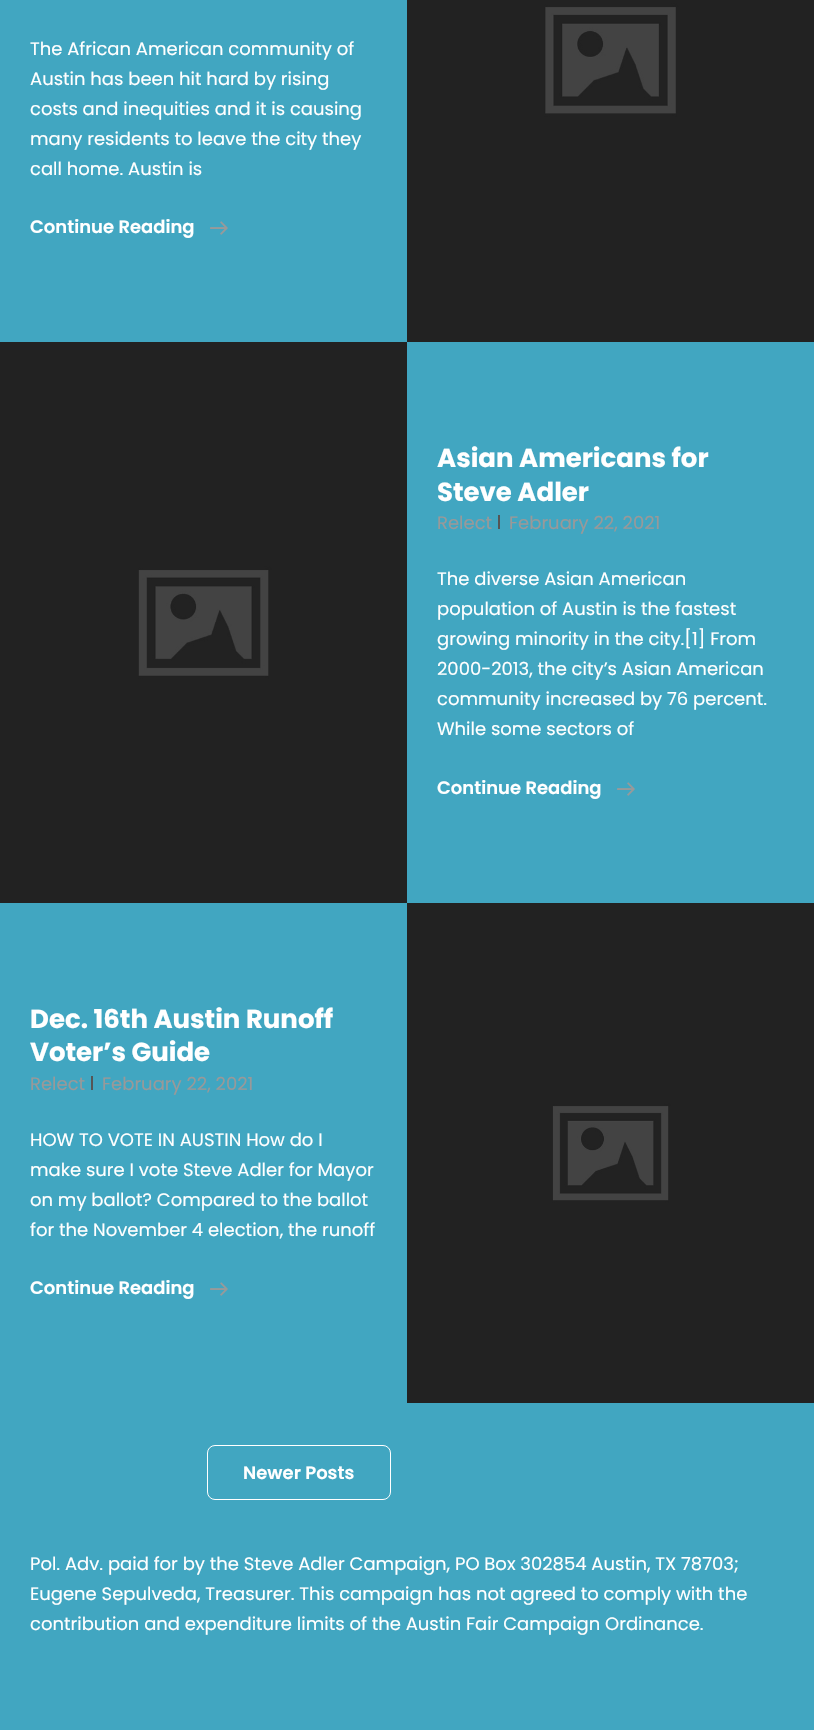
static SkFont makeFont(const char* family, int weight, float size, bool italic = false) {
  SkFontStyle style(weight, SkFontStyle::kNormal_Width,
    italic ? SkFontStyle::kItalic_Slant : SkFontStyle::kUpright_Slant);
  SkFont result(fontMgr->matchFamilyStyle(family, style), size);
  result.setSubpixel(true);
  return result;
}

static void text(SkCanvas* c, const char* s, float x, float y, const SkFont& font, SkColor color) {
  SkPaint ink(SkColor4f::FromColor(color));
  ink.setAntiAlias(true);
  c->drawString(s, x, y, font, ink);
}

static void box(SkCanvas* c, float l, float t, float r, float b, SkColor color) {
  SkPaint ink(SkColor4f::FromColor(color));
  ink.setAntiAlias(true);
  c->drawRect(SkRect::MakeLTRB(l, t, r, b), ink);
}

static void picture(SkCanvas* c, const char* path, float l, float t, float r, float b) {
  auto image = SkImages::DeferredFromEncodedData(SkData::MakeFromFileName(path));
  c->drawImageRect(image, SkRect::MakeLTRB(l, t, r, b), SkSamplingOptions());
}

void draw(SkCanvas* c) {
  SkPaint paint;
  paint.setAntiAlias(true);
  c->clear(0xff41a6c1);
  SkFont face1 = makeFont("Poppins", 400, 18);
  text(c, "The African American community of", 30, 55, face1, 0xffffffff);
  text(c, "Austin has been hit hard by rising", 30, 85, face1, 0xffffffff);
  text(c, "costs and inequities and it is causing", 30, 115, face1, 0xffffffff);
  text(c, "many residents to leave the city they", 30, 145, face1, 0xffffffff);
  text(c, "call home. Austin is", 30, 175, face1, 0xffffffff);
  SkFont face2 = makeFont("Poppins", 600, 18);
  text(c, "Continue Reading", 30, 233, face2, 0xffffffff);
  picture(c, "img_01.png", 210, 221, 228, 235);
  picture(c, "img_02.png", 407, 0, 814, 342);
  picture(c, "img_03.png", 0, 342, 407, 903);
  SkFont face3 = makeFont("Poppins", 700, 26);
  text(c, "Asian Americans for", 437, 467, face3, 0xffffffff);
  text(c, "Steve Adler", 437, 501, face3, 0xffffffff);
  text(c, "Relect", 437, 529, face1, 0xff999999);
  box(c, 498, 515, 500, 529, 0xff555555);
  text(c, "February 22, 2021", 509, 529, face1, 0xff999999);
  text(c, "The diverse Asian American", 437, 585, face1, 0xffffffff);
  text(c, "population of Austin is the fastest", 437, 615, face1, 0xffffffff);
  text(c, "growing minority in the city.[1] From", 437, 645, face1, 0xffffffff);
  text(c, "2000-2013, the city’s Asian American", 437, 675, face1, 0xffffffff);
  text(c, "community increased by 76 percent.", 437, 705, face1, 0xffffffff);
  text(c, "While some sectors of", 437, 735, face1, 0xffffffff);
  text(c, "Continue Reading", 437, 794, face2, 0xffffffff);
  picture(c, "img_01.png", 617, 782, 635, 796);
  text(c, "Dec. 16th Austin Runoff", 30, 1028, face3, 0xffffffff);
  text(c, "Voter’s Guide", 30, 1061, face3, 0xffffffff);
  text(c, "Relect", 30, 1090, face1, 0xff999999);
  box(c, 91, 1076, 93, 1090, 0xff555555);
  text(c, "February 22, 2021", 102, 1090, face1, 0xff999999);
  text(c, "HOW TO VOTE IN AUSTIN How do I", 30, 1146, face1, 0xffffffff);
  text(c, "make sure I vote Steve Adler for Mayor", 30, 1176, face1, 0xffffffff);
  text(c, "on my ballot? Compared to the ballot", 30, 1206, face1, 0xffffffff);
  text(c, "for the November 4 election, the runoff", 30, 1236, face1, 0xffffffff);
  text(c, "Continue Reading", 30, 1294, face2, 0xffffffff);
  picture(c, "img_01.png", 210, 1282, 228, 1296);
  picture(c, "img_04.png", 407, 903, 814, 1403);
  paint.setStyle(SkPaint::kStroke_Style);
  paint.setStrokeWidth(1);
  paint.setColor(0xffffffff);
  c->drawRoundRect(SkRect::MakeLTRB(207.5f, 1445.5f, 390.5f, 1499.5f), 7.5f, 7.5f, paint);
  text(c, "Newer Posts", 243, 1479, face2, 0xffffffff);
  text(c, "Pol. Adv. paid for by the Steve Adler Campaign, PO Box 302854 Austin, TX 78703;", 30, 1570, face1, 0xffffffff);
  text(c, "Eugene Sepulveda, Treasurer. This campaign has not agreed to comply with the", 30, 1600, face1, 0xffffffff);
  text(c, "contribution and expenditure limits of the Austin Fair Campaign Ordinance.", 30, 1630, face1, 0xffffffff);
}
